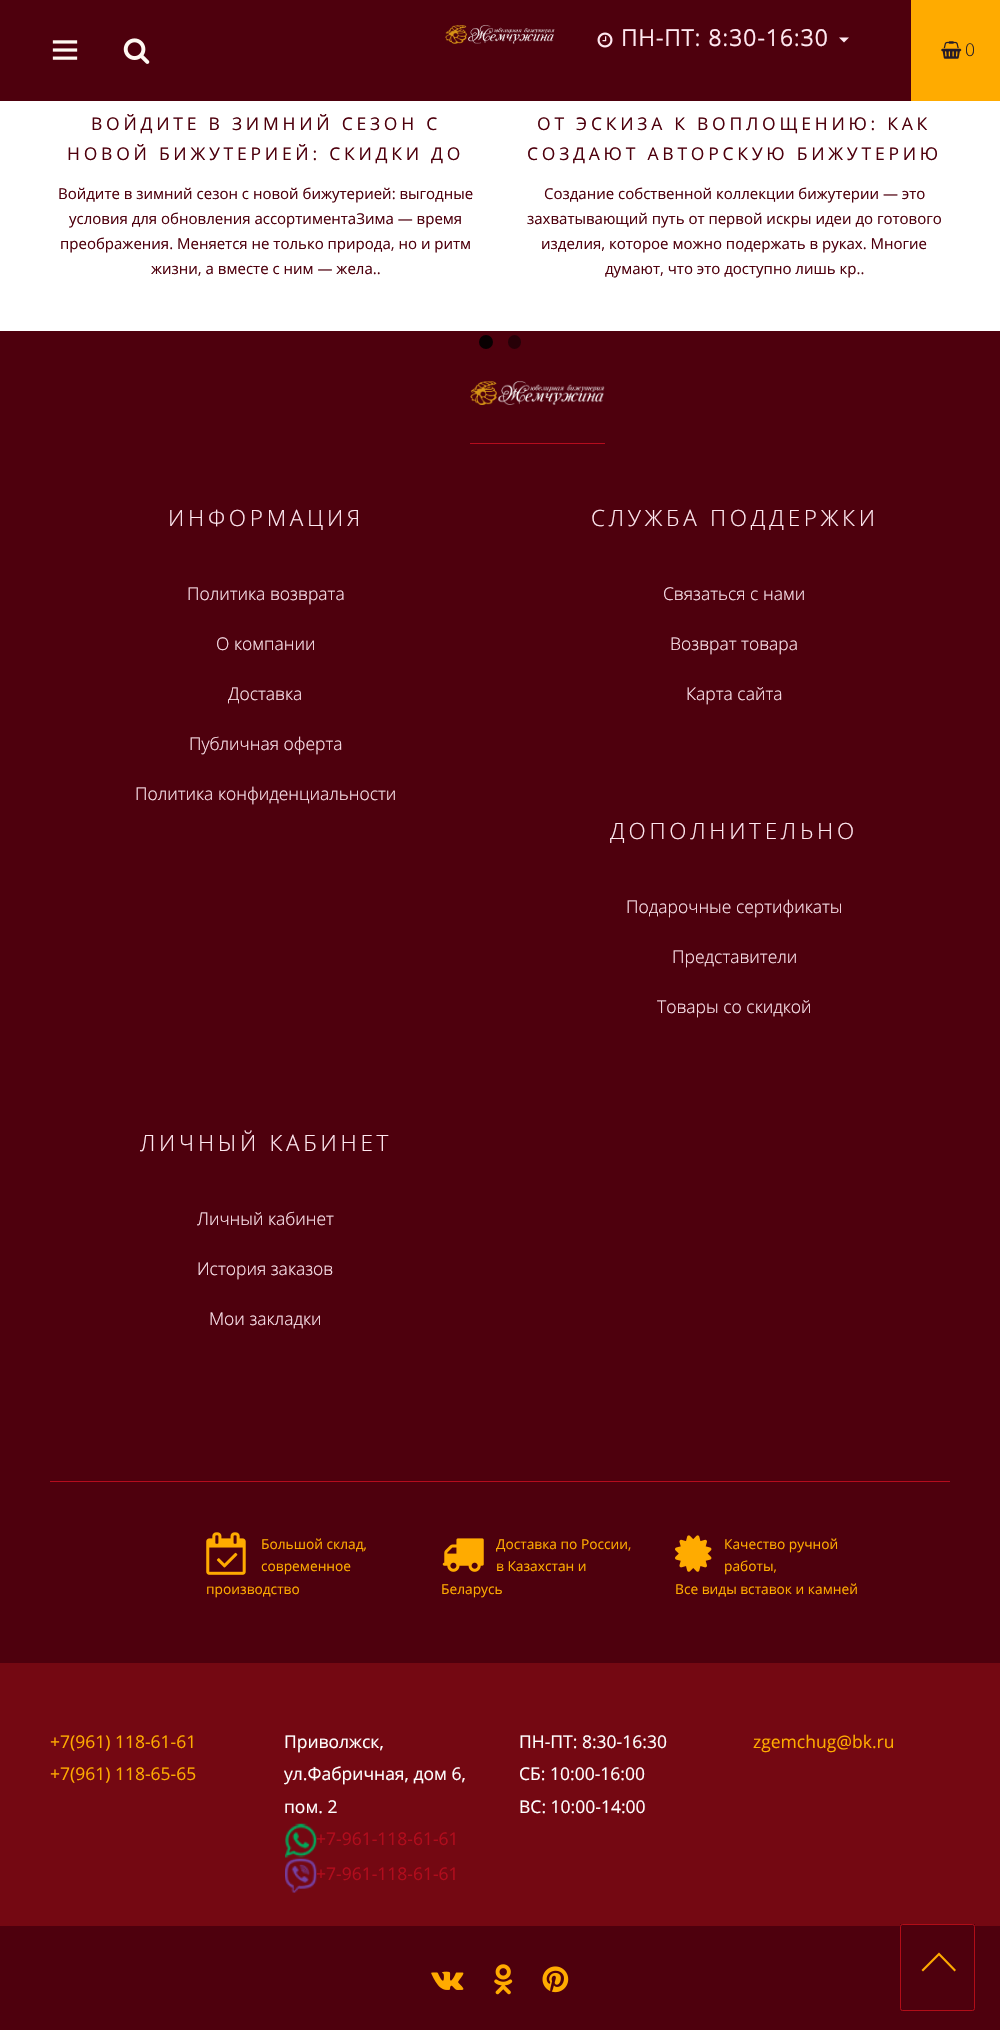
static SkFont makeFont(const char* family, int weight, float size, bool italic = false) {
  SkFontStyle style(weight, SkFontStyle::kNormal_Width,
    italic ? SkFontStyle::kItalic_Slant : SkFontStyle::kUpright_Slant);
  SkFont result(fontMgr->matchFamilyStyle(family, style), size);
  result.setSubpixel(true);
  return result;
}

static void text(SkCanvas* c, const char* s, float x, float y, const SkFont& font, SkColor color) {
  SkPaint ink(SkColor4f::FromColor(color));
  ink.setAntiAlias(true);
  c->drawString(s, x, y, font, ink);
}

static void spacedText(SkCanvas* c, const char* s, float x, float y, const SkFont& font, const SkPaint& ink, float letter, float word) {
  std::vector<SkGlyphID> glyphs(font.countText(s, strlen(s), SkTextEncoding::kUTF8));
  std::vector<float> xs(glyphs.size());
  font.textToGlyphs(s, strlen(s), SkTextEncoding::kUTF8, glyphs);
  font.getXPos(glyphs, xs, x);
  float extra = 0;
  for (size_t i = 0; i < glyphs.size(); i++) {
    xs[i] += extra;
    extra += letter + word * (glyphs[i] == font.unicharToGlyph(' '));
  }
  c->drawTextBlob(SkTextBlob::MakeFromPosHGlyphs(glyphs, xs, y, font), 0, 0, ink);
}

static void box(SkCanvas* c, float l, float t, float r, float b, SkColor color) {
  SkPaint ink(SkColor4f::FromColor(color));
  ink.setAntiAlias(true);
  c->drawRect(SkRect::MakeLTRB(l, t, r, b), ink);
}

static void roundBox(SkCanvas* c, float l, float t, float r, float b, float radius, SkColor color) {
  SkPaint ink(SkColor4f::FromColor(color));
  ink.setAntiAlias(true);
  c->drawRoundRect(SkRect::MakeLTRB(l, t, r, b), radius, radius, ink);
}

static void picture(SkCanvas* c, const char* path, float l, float t, float r, float b) {
  auto image = SkImages::DeferredFromEncodedData(SkData::MakeFromFileName(path));
  c->drawImageRect(image, SkRect::MakeLTRB(l, t, r, b), SkSamplingOptions());
}

void draw(SkCanvas* c) {
  SkPaint paint;
  paint.setAntiAlias(true);
  c->clear(0xffffffff);
  box(c, 0, 0, 911, 101, 0xff4e000d);
  picture(c, "img_01.png", 445, 25, 555, 44);
  picture(c, "img_02.png", 52, 40, 78, 60);
  picture(c, "img_03.png", 123, 38, 150, 64);
  picture(c, "img_04.png", 597, 32, 613, 48);
  SkFont face1 = makeFont("Open Sans", 700, 22.5f);
  paint.setColor(0xffffe8f0);
  spacedText(c, "ПН-ПТ: 8:30-16:30", 621, 46, face1, paint, 1.25f, 0);
  c->drawPath(SkPathBuilder().moveTo(839, 37.5f).lineTo(849, 37.5f).lineTo(844, 42.5f).close().detach(), paint);
  box(c, 911, 0, 1000, 101, 0xffffab00);
  picture(c, "img_05.png", 941, 41, 962, 59);
  SkFont face2 = makeFont("Open Sans", 300, 17.5f);
  text(c, "0", 965, 56, face2, 0xff251c28);
  SkFont face3 = makeFont("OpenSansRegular", 400, 17.5f);
  paint.setColor(0xff4e000d);
  spacedText(c, "ВОЙДИТЕ В ЗИМНИЙ СЕЗОН С", 91, 130, face3, paint, 3.75f, 0);
  spacedText(c, "НОВОЙ БИЖУТЕРИЕЙ: СКИДКИ ДО", 67, 160, face3, paint, 3.75f, 0);
  SkFont face4 = makeFont("Open Sans", 400, 15);
  text(c, "Войдите в зимний сезон с новой бижутерией: выгодные", 58, 199, face4, 0xff4e000d);
  text(c, "условия для обновления ассортиментаЗима — время", 69, 224, face4, 0xff4e000d);
  text(c, "преображения. Меняется не только природа, но и ритм", 60, 249, face4, 0xff4e000d);
  text(c, "жизни, а вместе с ним — жела..", 151, 274, face4, 0xff4e000d);
  spacedText(c, "ОТ ЭСКИЗА К ВОПЛОЩЕНИЮ: КАК", 537, 130, face3, paint, 3.75f, 0);
  spacedText(c, "СОЗДАЮТ АВТОРСКУЮ БИЖУТЕРИЮ", 527, 160, face3, paint, 3.75f, 0);
  text(c, "Создание собственной коллекции бижутерии — это", 544, 199, face4, 0xff4e000d);
  text(c, "захватывающий путь от первой искры идеи до готового", 527, 224, face4, 0xff4e000d);
  text(c, "изделия, которое можно подержать в руках. Многие", 541, 249, face4, 0xff4e000d);
  text(c, "думают, что это доступно лишь кр..", 605, 274, face4, 0xff4e000d);
  box(c, 0, 331, 1000, 1663, 0xff4e000d);
  paint.setColor(0xff080001);
  c->drawCircle(486, 342, 7, paint);
  roundBox(c, 508, 335, 521, 349, 6.5f, 0xff270007);
  box(c, 470, 443, 605, 444, 0xffb50c1d);
  picture(c, "img_06.png", 470, 381, 605, 405);
  SkFont face5 = makeFont("Open Sans", 300, 22.5f);
  paint.setColor(0xffffe8f0);
  spacedText(c, "ИНФОРМАЦИЯ", 168, 526, face5, paint, 3.75f, 0);
  text(c, "Политика возврата", 187, 600, face2, 0xffffe8f0);
  text(c, "О компании", 216, 650, face2, 0xffffe8f0);
  text(c, "Доставка", 228, 700, face2, 0xffffe8f0);
  text(c, "Публичная оферта", 189, 750, face2, 0xffffe8f0);
  text(c, "Политика конфиденциальности", 135, 800, face2, 0xffffe8f0);
  spacedText(c, "СЛУЖБА ПОДДЕРЖКИ", 591, 526, face5, paint, 3.75f, 0);
  text(c, "Связаться с нами", 663, 600, face2, 0xffffe8f0);
  text(c, "Возврат товара", 670, 650, face2, 0xffffe8f0);
  text(c, "Карта сайта", 686, 700, face2, 0xffffe8f0);
  spacedText(c, "ДОПОЛНИТЕЛЬНО", 610, 839, face5, paint, 3.75f, 0);
  text(c, "Подарочные сертификаты", 626, 913, face2, 0xffffe8f0);
  text(c, "Представители", 672, 963, face2, 0xffffe8f0);
  text(c, "Товары со скидкой", 657, 1013, face2, 0xffffe8f0);
  spacedText(c, "ЛИЧНЫЙ КАБИНЕТ", 140, 1151, face5, paint, 3.75f, 0);
  text(c, "Личный кабинет", 197, 1225, face2, 0xffffe8f0);
  text(c, "История заказов", 197, 1275, face2, 0xffffe8f0);
  text(c, "Мои закладки", 209, 1325, face2, 0xffffe8f0);
  box(c, 50, 1481, 950, 1482, 0xffb50c1d);
  picture(c, "img_07.png", 206, 1532, 246, 1575);
  SkFont face6 = makeFont("OpenSansRegular", 400, 13.75f);
  text(c, "Большой склад,", 261, 1549, face6, 0xffffab00);
  text(c, "современное", 261, 1571, face6, 0xffffab00);
  text(c, "производство", 206, 1594, face6, 0xffffab00);
  picture(c, "img_08.png", 442, 1538, 484, 1572);
  text(c, "Доставка по России,", 496, 1549, face6, 0xffffab00);
  text(c, "в Казахстан и", 496, 1571, face6, 0xffffab00);
  text(c, "Беларусь", 441, 1594, face6, 0xffffab00);
  picture(c, "img_09.png", 675, 1535, 712, 1572);
  text(c, "Качество ручной", 724, 1549, face6, 0xffffab00);
  text(c, "работы,", 724, 1571, face6, 0xffffab00);
  text(c, "Все виды вставок и камней", 675, 1594, face6, 0xffffab00);
  box(c, 0, 1663, 1000, 1926, 0xff740812);
  text(c, "+7(961) 118-61-61", 50, 1748, face3, 0xffffab00);
  text(c, "+7(961) 118-65-65", 50, 1780, face3, 0xffffab00);
  text(c, "Приволжск,", 284, 1748, face3, 0xffffffff);
  text(c, "ул.Фабричная, дом 6,", 284, 1780, face3, 0xffffffff);
  text(c, "пом. 2", 284, 1813, face3, 0xffffffff);
  picture(c, "img_10.png", 285, 1823, 317, 1858);
  text(c, "+7-961-118-61-61", 316, 1845, face3, 0xffb10c1c);
  picture(c, "img_11.png", 285, 1858, 317, 1893);
  text(c, "+7-961-118-61-61", 316, 1880, face3, 0xffb10c1c);
  text(c, "ПН-ПТ: 8:30-16:30", 519, 1748, face3, 0xffffffff);
  text(c, "СБ: 10:00-16:00", 519, 1780, face3, 0xffffffff);
  text(c, "ВС: 10:00-14:00", 519, 1813, face3, 0xffffffff);
  text(c, "zgemchug@bk.ru", 753, 1748, face3, 0xffffab00);
  box(c, 900, 1924, 975, 1926, 0xff4e000d);
  box(c, 0, 1926, 1000, 2030, 0xff4e000d);
  paint.setStyle(SkPaint::kStroke_Style);
  paint.setStrokeWidth(1);
  paint.setColor(0xffb10d18);
  c->drawRoundRect(SkRect::MakeLTRB(900.5f, 1924.5f, 974.5f, 2010.5f), 2, 2, paint);
  paint.setStyle(SkPaint::kFill_Style);
  paint.setColor(0xffffab00);
  c->drawPath(SkPathBuilder().moveTo(956, 1970).lineTo(954.5f, 1971.5f).lineTo(939, 1955.5f).lineTo(923, 1971.5f).lineTo(921.5f, 1970).lineTo(939, 1952.5f).close().detach(), paint);
  picture(c, "img_12.png", 431, 1971, 464, 1990);
  picture(c, "img_13.png", 494, 1964, 513, 1995);
  picture(c, "img_14.png", 542, 1966, 569, 1993);
}
